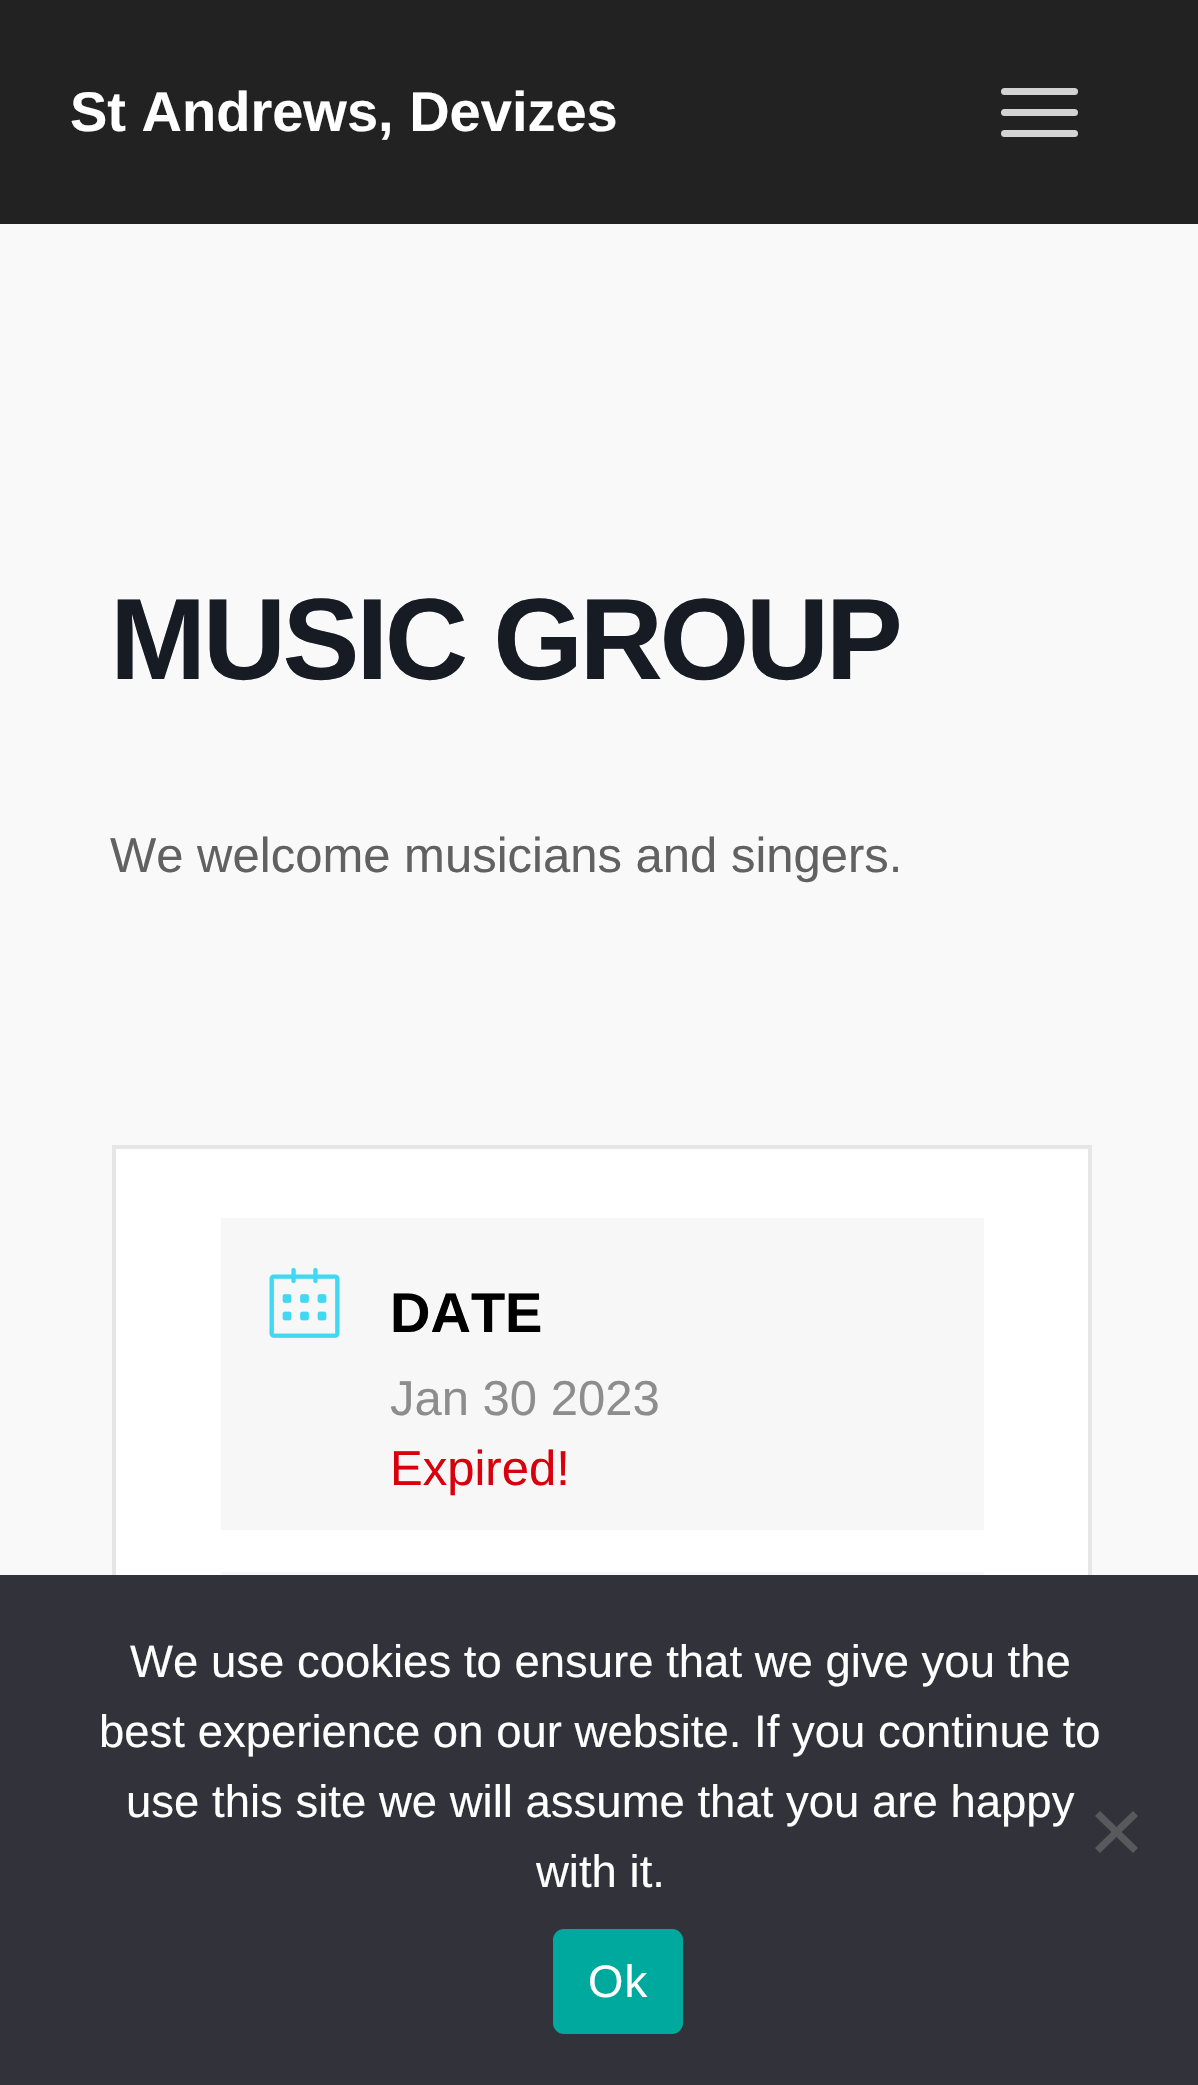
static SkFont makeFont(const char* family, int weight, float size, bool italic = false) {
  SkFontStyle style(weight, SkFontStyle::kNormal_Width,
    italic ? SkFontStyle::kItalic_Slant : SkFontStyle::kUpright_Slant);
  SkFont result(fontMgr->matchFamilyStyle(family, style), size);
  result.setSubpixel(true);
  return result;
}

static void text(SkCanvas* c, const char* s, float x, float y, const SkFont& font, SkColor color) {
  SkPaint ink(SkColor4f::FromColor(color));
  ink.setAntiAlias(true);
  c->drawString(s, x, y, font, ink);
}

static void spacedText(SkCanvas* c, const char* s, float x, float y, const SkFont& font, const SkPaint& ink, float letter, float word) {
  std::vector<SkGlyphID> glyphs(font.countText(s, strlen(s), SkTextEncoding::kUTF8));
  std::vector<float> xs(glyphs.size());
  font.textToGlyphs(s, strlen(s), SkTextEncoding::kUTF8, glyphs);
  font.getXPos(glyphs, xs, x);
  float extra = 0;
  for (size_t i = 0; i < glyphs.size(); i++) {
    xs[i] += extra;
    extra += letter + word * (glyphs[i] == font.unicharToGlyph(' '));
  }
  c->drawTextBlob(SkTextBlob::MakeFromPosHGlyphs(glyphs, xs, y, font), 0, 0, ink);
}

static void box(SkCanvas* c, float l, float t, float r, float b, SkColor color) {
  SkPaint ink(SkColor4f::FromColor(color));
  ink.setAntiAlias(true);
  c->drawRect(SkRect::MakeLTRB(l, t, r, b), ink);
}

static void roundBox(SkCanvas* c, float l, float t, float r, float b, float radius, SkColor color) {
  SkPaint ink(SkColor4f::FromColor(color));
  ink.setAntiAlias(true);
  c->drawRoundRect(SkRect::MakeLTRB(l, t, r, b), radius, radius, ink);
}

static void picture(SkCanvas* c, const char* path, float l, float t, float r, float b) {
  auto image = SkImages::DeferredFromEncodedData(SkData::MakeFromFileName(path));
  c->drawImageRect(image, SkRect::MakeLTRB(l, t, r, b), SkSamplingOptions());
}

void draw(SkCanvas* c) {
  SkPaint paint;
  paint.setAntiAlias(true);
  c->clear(0xfff9f9f9);
  box(c, 0, 0, 1198, 224, 0xff222222);
  SkFont face1 = makeFont("Liberation Sans", 700, 56);
  text(c, "St Andrews, Devizes", 70, 131, face1, 0xffffffff);
  roundBox(c, 1001, 88, 1078, 95, 3.5f, 0xffd3d3d3);
  roundBox(c, 1001, 109, 1078, 116, 3.5f, 0xffd3d3d3);
  roundBox(c, 1001, 130, 1078, 137, 3.5f, 0xffd3d3d3);
  SkFont face2 = makeFont("Liberation Sans", 700, 115.5f);
  paint.setColor(0xff171c24);
  spacedText(c, "MUSIC GROUP", 110, 679, face2, paint, -3.5f, 0);
  SkFont face3 = makeFont("Liberation Sans", 400, 49);
  text(c, "We welcome musicians and singers.", 110, 872, face3, 0xff616161);
  box(c, 116, 1149, 1088, 1575, 0xffffffff);
  paint.setStyle(SkPaint::kStroke_Style);
  paint.setStrokeWidth(4);
  paint.setColor(0xffe6e6e6);
  c->drawRect(SkRect::MakeLTRB(114, 1147, 1090, 1927), paint);
  box(c, 221, 1218, 984, 1530, 0xfff7f7f7);
  picture(c, "img_01.png", 269, 1267, 340, 1338);
  text(c, "DATE", 390, 1332, face1, 0xff000000);
  text(c, "Jan 30 2023", 390, 1415, face3, 0xff8d8d8d);
  text(c, "Expired!", 390, 1485, face3, 0xffd8000c);
  box(c, 221, 1572, 984, 1575, 0xfff7f7f7);
  box(c, 0, 1575, 1198, 2085, 0xff32323a);
  SkFont face4 = makeFont("Liberation Sans", 400, 45.5f);
  text(c, "We use cookies to ensure that we give you the", 130, 1677, face4, 0xffffffff);
  text(c, "best experience on our website. If you continue to", 99, 1747, face4, 0xffffffff);
  text(c, "use this site we will assume that you are happy", 126, 1817, face4, 0xffffffff);
  text(c, "with it.", 536, 1887, face4, 0xffffffff);
  paint.setStyle(SkPaint::kFill_Style);
  paint.setColor(0xff59595d);
  c->drawPath(SkPathBuilder().moveTo(1133, 1811).lineTo(1138, 1816).lineTo(1100, 1853).lineTo(1095, 1848).close().detach(), paint);
  c->drawPath(SkPathBuilder().moveTo(1095, 1816).lineTo(1100, 1811).lineTo(1138, 1848).lineTo(1133, 1853).close().detach(), paint);
  roundBox(c, 553, 1929, 683, 2034, 11, 0xff00a99d);
  paint.setColor(0xffffffff);
  spacedText(c, "Ok", 588, 1997, face4, paint, 1, 0);
}
